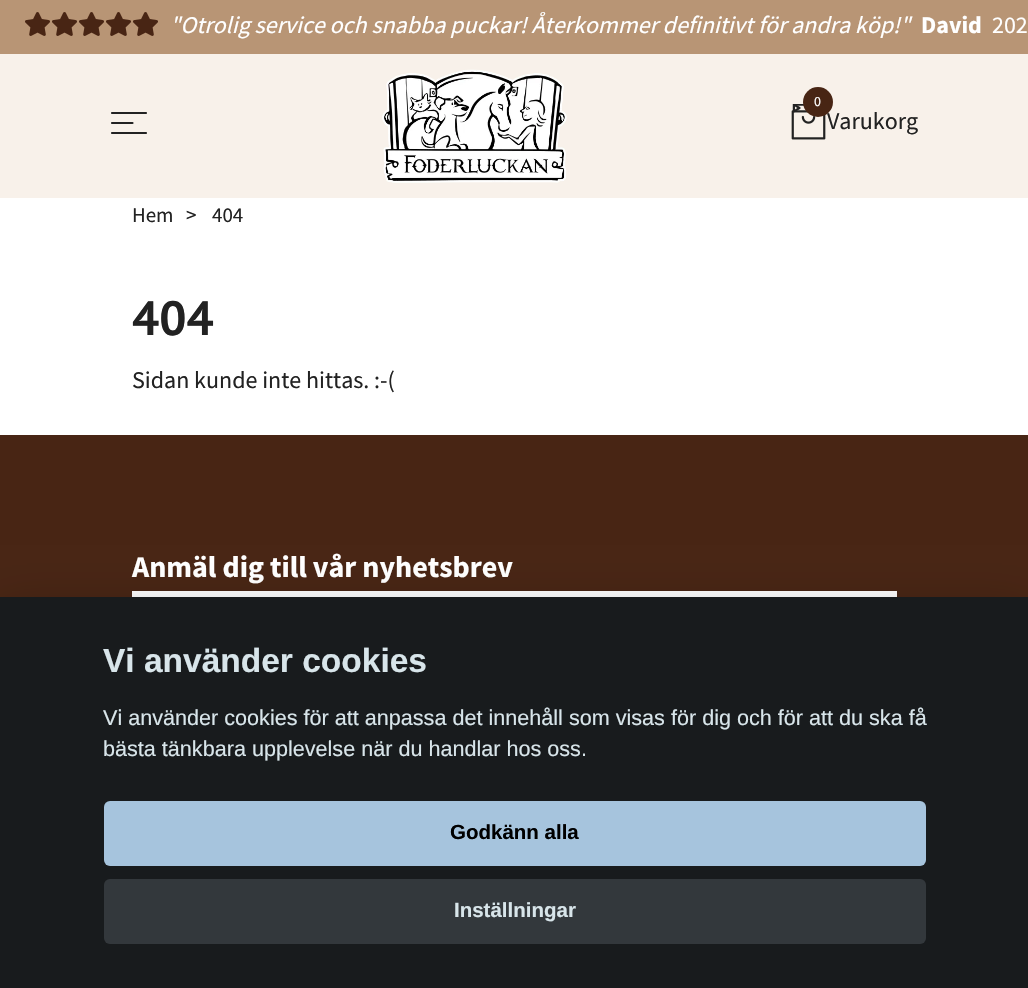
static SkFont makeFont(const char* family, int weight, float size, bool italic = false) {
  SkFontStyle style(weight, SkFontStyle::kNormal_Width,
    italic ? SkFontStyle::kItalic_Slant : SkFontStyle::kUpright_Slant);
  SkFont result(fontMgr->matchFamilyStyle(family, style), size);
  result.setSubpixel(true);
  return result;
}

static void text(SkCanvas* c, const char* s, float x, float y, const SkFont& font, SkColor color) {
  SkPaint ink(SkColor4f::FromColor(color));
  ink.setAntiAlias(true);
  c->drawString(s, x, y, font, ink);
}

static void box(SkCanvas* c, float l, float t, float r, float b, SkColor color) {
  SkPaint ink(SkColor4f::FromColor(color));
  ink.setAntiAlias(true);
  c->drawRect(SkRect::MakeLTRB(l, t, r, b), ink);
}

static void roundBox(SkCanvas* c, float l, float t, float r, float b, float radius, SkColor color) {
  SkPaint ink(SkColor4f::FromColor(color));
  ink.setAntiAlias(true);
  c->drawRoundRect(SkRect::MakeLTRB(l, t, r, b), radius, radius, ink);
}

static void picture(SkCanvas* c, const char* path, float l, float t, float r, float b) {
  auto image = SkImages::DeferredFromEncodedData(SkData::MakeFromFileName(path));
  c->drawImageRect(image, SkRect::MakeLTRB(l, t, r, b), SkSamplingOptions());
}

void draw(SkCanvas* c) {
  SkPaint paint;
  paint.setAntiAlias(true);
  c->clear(0xffffffff);
  box(c, 0, 0, 1028, 54, 0xffb89575);
  picture(c, "img_01.png", 25, 12, 50, 36);
  picture(c, "img_01.png", 52, 12, 77, 36);
  picture(c, "img_01.png", 79, 12, 104, 36);
  picture(c, "img_01.png", 106, 12, 131, 36);
  picture(c, "img_01.png", 133, 12, 158, 36);
  SkFont face1 = makeFont("Source Sans Pro", 400, 24, true);
  text(c, "\"Otrolig service och snabba puckar! Återkommer definitivt för andra köp!\"", 170, 33, face1, 0xffffffff);
  SkFont face2 = makeFont("Source Sans Pro", 700, 24);
  text(c, "David", 921, 33, face2, 0xffffffff);
  SkFont face3 = makeFont("Source Sans Pro", 400, 24);
  text(c, "202", 992, 33, face3, 0xffffffff);
  box(c, 0, 54, 1028, 198, 0xfff8f1ea);
  paint.setStyle(SkPaint::kStroke_Style);
  paint.setStrokeWidth(2.2f);
  paint.setStrokeCap(SkPaint::kRound_Cap);
  paint.setStrokeJoin(SkPaint::kRound_Join);
  paint.setColor(0xff222222);
  c->drawPath(SkPathBuilder().moveTo(112, 113).lineTo(146, 113).moveTo(112, 123).lineTo(132.5f, 123).moveTo(112, 133).lineTo(146, 133).detach(), paint);
  picture(c, "img_02.png", 382, 69, 567, 183);
  picture(c, "img_03.png", 791, 104, 826, 140);
  text(c, "Varukorg", 827, 129, face3, 0xff222222);
  paint.setStyle(SkPaint::kFill_Style);
  paint.setColor(0xff482514);
  c->drawCircle(818, 102, 15, paint);
  SkFont face4 = makeFont("Source Sans Pro", 400, 14);
  text(c, "0", 814, 106, face4, 0xffffffff);
  SkFont face5 = makeFont("Source Sans Pro", 400, 21);
  text(c, "Hem", 132, 222, face5, 0xff222222);
  text(c, ">", 186, 222, face5, 0xff222222);
  text(c, "404", 212, 222, face5, 0xff222222);
  SkFont face6 = makeFont("PT Sans", 700, 48);
  text(c, "404", 132, 335, face6, 0xff222222);
  text(c, "Sidan kunde inte hittas. :-(", 132, 388, face3, 0xff222222);
  box(c, 0, 435, 1028, 597, 0xff482514);
  SkFont face7 = makeFont("Source Sans Pro", 700, 30);
  text(c, "Anmäl dig till vår nyhetsbrev", 132, 577, face7, 0xffffffff);
  box(c, 132, 591, 897, 597, 0xffffffff);
  paint.setColor(0x47020203);
  paint.setMaskFilter(SkMaskFilter::MakeBlur(kNormal_SkBlurStyle, 22.5f));
  c->drawRect(SkRect::MakeLTRB(0, 612, 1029, 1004), paint);
  paint.setMaskFilter(nullptr);
  box(c, 0, 597, 1028, 988, 0xff181b1d);
  SkFont face8 = makeFont("Liberation Sans", 700, 33.5f);
  text(c, "Vi använder cookies", 103, 672, face8, 0xffd8e5ea);
  SkFont face9 = makeFont("Liberation Sans", 400, 21.6f);
  text(c, "Vi använder cookies för att anpassa det innehåll som visas för dig och för att du ska få", 103, 725, face9, 0xffd8e5ea);
  text(c, "bästa tänkbara upplevelse när du handlar hos oss.", 103, 756, face9, 0xffd8e5ea);
  roundBox(c, 104, 801, 926, 866, 6, 0xffa6c4dd);
  SkFont face10 = makeFont("Liberation Sans", 700, 20.5f);
  text(c, "Godkänn alla", 450, 839, face10, 0xff000000);
  roundBox(c, 104, 879, 926, 944, 6, 0xff33383c);
  text(c, "Inställningar", 454, 917, face10, 0xffd8e5ea);
}
